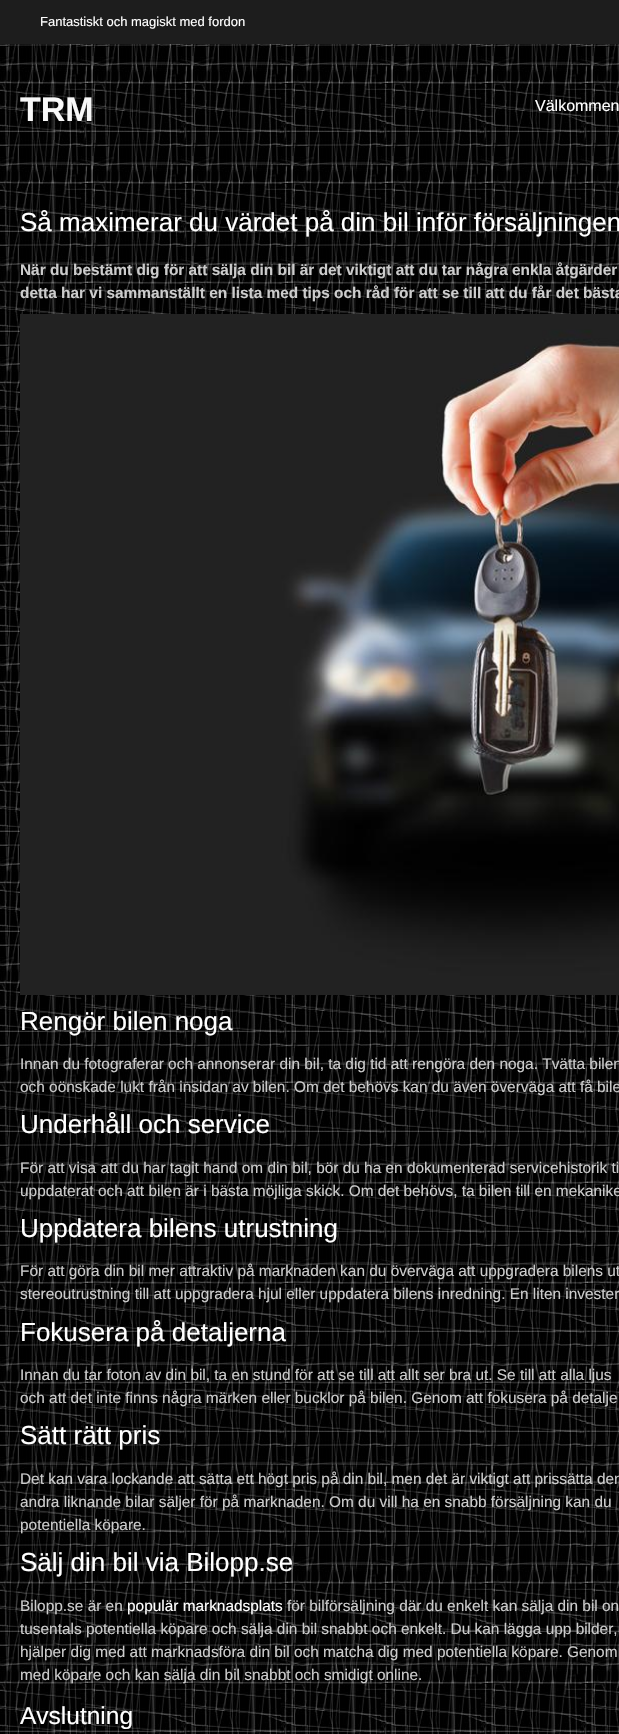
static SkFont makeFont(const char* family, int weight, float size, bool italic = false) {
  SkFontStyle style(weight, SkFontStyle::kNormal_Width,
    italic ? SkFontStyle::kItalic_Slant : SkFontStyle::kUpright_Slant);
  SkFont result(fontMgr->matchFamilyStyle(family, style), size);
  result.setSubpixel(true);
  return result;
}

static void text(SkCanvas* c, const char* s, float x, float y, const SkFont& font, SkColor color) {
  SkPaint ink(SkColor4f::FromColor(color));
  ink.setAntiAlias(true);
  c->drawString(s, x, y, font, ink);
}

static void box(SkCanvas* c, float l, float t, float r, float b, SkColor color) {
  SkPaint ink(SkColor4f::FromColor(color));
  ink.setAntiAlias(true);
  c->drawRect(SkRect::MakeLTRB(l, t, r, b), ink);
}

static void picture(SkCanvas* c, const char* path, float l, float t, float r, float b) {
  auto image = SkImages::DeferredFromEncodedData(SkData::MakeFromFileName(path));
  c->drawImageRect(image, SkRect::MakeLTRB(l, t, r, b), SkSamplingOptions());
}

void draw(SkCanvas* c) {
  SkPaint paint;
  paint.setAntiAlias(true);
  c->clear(0xffffffff);
  picture(c, "img_01.png", 0, 44, 619, 1734);
  box(c, 0, 0, 619, 44, 0xff1d1d1d);
  SkFont face1 = makeFont("Liberation Sans", 400, 13);
  text(c, "Fantastiskt och magiskt med fordon", 40, 26, face1, 0xffffffff);
  SkFont face2 = makeFont("Liberation Sans", 700, 34);
  text(c, "TRM", 20, 121, face2, 0xfff8f8f8);
  SkFont face3 = makeFont("Liberation Sans", 400, 16);
  text(c, "Välkommen", 535, 111, face3, 0xffffffff);
  SkFont face4 = makeFont("Liberation Sans", 400, 26);
  text(c, "Så maximerar du värdet på din bil inför försäljningen", 20, 231, face4, 0xffffffff);
  SkFont face5 = makeFont("Liberation Sans", 700, 15.4f);
  text(c, "När du bestämt dig för att sälja din bil är det viktigt att du tar några enkla åtgärder", 20, 275, face5, 0xffcccccc);
  text(c, "detta har vi sammanställt en lista med tips och råd för att se till att du får det bästa", 20, 298, face5, 0xffcccccc);
  picture(c, "img_02.png", 20, 314, 619, 995);
  text(c, "Rengör bilen noga", 20, 1030, face4, 0xffffffff);
  SkFont face6 = makeFont("Liberation Sans", 400, 15.4f);
  text(c, "Innan du fotograferar och annonserar din bil, ta dig tid att rengöra den noga. Tvätta bilen", 20, 1069, face6, 0xffcccccc);
  text(c, "och oönskade lukt från insidan av bilen. Om det behövs kan du även överväga att få bile", 20, 1092, face6, 0xffcccccc);
  text(c, "Underhåll och service", 20, 1133, face4, 0xffffffff);
  text(c, "För att visa att du har tagit hand om din bil, bör du ha en dokumenterad servicehistorik ti", 20, 1173, face6, 0xffcccccc);
  text(c, "uppdaterat och att bilen är i bästa möjliga skick. Om det behövs, ta bilen till en mekanike", 20, 1196, face6, 0xffcccccc);
  text(c, "Uppdatera bilens utrustning", 20, 1237, face4, 0xffffffff);
  text(c, "För att göra din bil mer attraktiv på marknaden kan du överväga att uppgradera bilens ut", 20, 1276, face6, 0xffcccccc);
  text(c, "stereoutrustning till att uppgradera hjul eller uppdatera bilens inredning. En liten invester", 20, 1299, face6, 0xffcccccc);
  text(c, "Fokusera på detaljerna", 20, 1341, face4, 0xffffffff);
  text(c, "Innan du tar foton av din bil, ta en stund för att se till att allt ser bra ut. Se till att alla ljus", 20, 1380, face6, 0xffcccccc);
  text(c, "och att det inte finns några märken eller bucklor på bilen. Genom att fokusera på detalje", 20, 1403, face6, 0xffcccccc);
  text(c, "Sätt rätt pris", 20, 1444, face4, 0xffffffff);
  text(c, "Det kan vara lockande att sätta ett högt pris på din bil, men det är viktigt att prissätta den", 20, 1484, face6, 0xffcccccc);
  text(c, "andra liknande bilar säljer för på marknaden. Om du vill ha en snabb försäljning kan du", 20, 1507, face6, 0xffcccccc);
  text(c, "potentiella köpare.", 20, 1530, face6, 0xffcccccc);
  text(c, "Sälj din bil via Bilopp.se", 20, 1571, face4, 0xffffffff);
  text(c, "Bilopp.se är en", 20, 1611, face6, 0xffcccccc);
  text(c, "populär marknadsplats", 127, 1611, face6, 0xffffffff);
  text(c, "för bilförsäljning där du enkelt kan sälja din bil on", 287, 1611, face6, 0xffcccccc);
  text(c, "tusentals potentiella köpare och sälja din bil snabbt och enkelt. Du kan lägga upp bilder,", 20, 1634, face6, 0xffcccccc);
  text(c, "hjälper dig med att marknadsföra din bil och matcha dig med potentiella köpare. Genom", 20, 1657, face6, 0xffcccccc);
  text(c, "med köpare och kan sälja din bil snabbt och smidigt online.", 20, 1680, face6, 0xffcccccc);
  SkFont face7 = makeFont("Liberation Sans", 400, 24.5f);
  text(c, "Avslutning", 20, 1724, face7, 0xffffffff);
}
